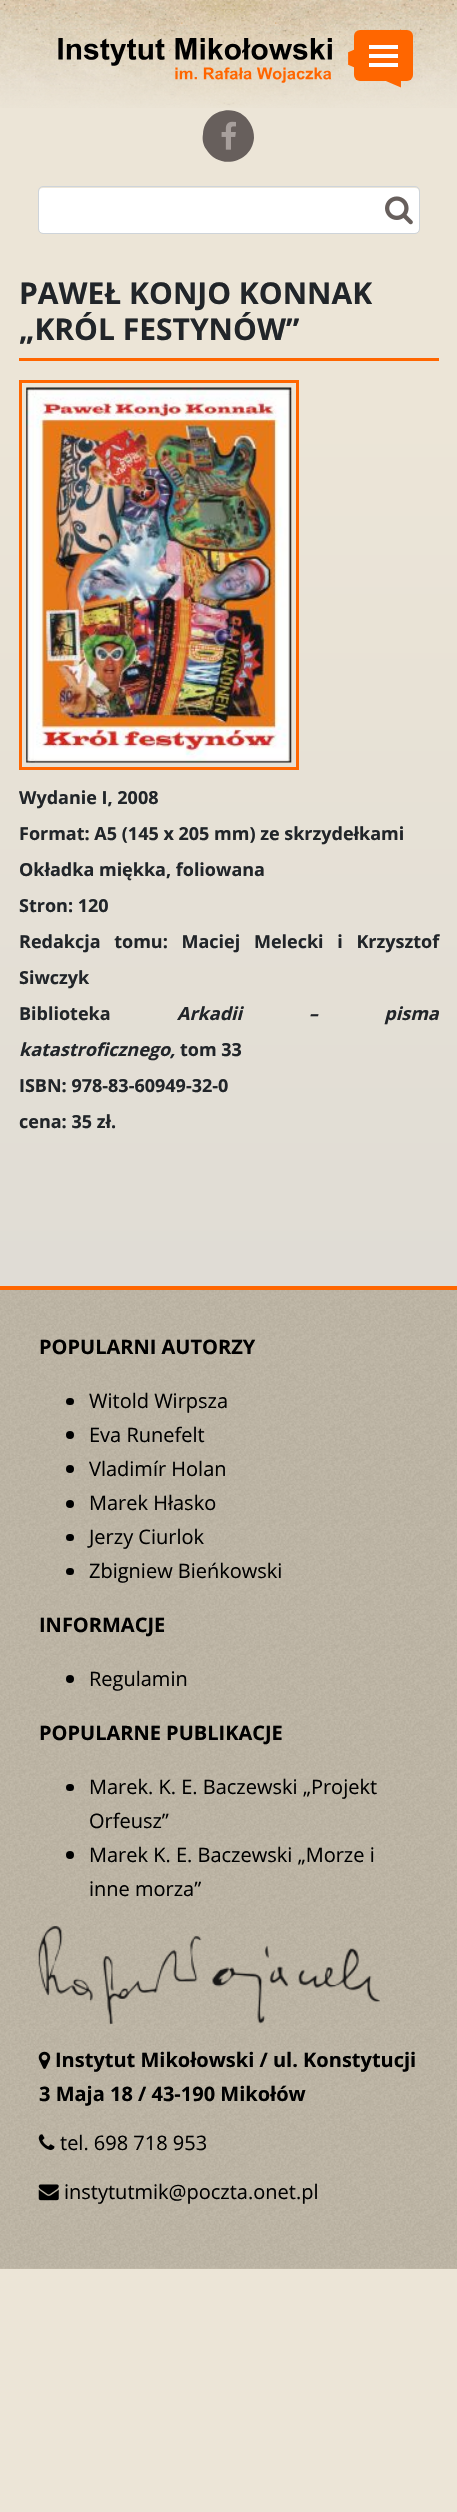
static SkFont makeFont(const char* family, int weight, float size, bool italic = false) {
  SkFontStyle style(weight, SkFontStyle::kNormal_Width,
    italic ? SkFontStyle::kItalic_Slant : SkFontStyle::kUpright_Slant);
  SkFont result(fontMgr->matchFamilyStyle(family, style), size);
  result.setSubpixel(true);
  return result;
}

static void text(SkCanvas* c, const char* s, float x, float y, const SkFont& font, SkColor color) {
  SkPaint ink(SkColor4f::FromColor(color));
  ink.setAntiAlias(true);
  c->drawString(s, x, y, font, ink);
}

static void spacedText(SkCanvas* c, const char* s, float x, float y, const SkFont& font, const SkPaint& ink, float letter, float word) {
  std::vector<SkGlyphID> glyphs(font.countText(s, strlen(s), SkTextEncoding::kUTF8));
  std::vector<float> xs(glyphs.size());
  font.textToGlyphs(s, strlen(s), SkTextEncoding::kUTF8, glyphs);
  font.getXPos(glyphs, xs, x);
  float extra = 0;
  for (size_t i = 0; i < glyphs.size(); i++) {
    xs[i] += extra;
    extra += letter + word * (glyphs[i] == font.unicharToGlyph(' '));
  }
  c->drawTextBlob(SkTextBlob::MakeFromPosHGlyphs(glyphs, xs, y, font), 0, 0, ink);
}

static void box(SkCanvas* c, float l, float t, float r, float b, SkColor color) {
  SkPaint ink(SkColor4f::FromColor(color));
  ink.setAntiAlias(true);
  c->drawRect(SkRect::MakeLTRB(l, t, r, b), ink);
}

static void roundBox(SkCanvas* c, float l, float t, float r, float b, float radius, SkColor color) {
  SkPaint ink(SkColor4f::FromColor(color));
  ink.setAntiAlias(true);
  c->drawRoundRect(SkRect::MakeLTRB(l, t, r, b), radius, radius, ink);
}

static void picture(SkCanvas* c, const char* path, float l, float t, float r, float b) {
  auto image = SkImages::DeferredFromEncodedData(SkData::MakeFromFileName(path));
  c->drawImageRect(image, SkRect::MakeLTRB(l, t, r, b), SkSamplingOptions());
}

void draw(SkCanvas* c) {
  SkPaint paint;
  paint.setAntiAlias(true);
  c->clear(0xffffffff);
  {
    const SkColor colors[] = {0xffd2d2d2, 0xffece5d7};
    const float stops[] = {0, 0.82f};
    const SkPoint ends[] = {{229, 2269}, {229, 0}};
    paint.setShader(SkGradientShader::MakeLinear(ends, colors, stops, 2, SkTileMode::kClamp));
    paint.setAlpha(255);
  }
  c->drawRect(SkRect::MakeLTRB(0, 9, 457, 1286), paint);
  {
    const SkColor colors[] = {0xffd2d2d2, 0xffece5d7};
    const float stops[] = {0, 0.82f};
    const SkPoint ends[] = {{229, 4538}, {229, 2269}};
    paint.setShader(SkGradientShader::MakeLinear(ends, colors, stops, 2, SkTileMode::kClamp));
    paint.setAlpha(255);
  }
  c->drawRect(SkRect::MakeLTRB(0, 2269, 457, 2512), paint);
  picture(c, "img_01.png", 0, 0, 457, 108);
  picture(c, "img_02.png", 58, 29, 401, 88);
  paint.setShader(nullptr);
  paint.setColor(0xff675f5c);
  c->drawPath(SkPathBuilder().moveTo(250, 123).cubicTo(253, 128, 254, 133, 254, 138).cubicTo(252, 163, 219, 171, 206, 149).cubicTo(203, 145, 202, 139, 203, 134).cubicTo(204, 109, 238, 101, 250, 123).close().detach(), paint);
  picture(c, "img_03.png", 221, 121, 236, 150);
  roundBox(c, 39, 188, 419, 233, 4, 0xffffffff);
  paint.setStyle(SkPaint::kStroke_Style);
  paint.setStrokeWidth(1);
  paint.setColor(0xffced4da);
  c->drawRoundRect(SkRect::MakeLTRB(38.5f, 186.5f, 419.5f, 233.5f), 4.5f, 4.5f, paint);
  picture(c, "img_04.png", 385, 196, 413, 225);
  roundBox(c, 354, 30, 413, 81, 6, 0xffff6600);
  box(c, 369, 45, 398, 49, 0xffffffff);
  box(c, 369, 54, 398, 58, 0xffffffff);
  box(c, 369, 63, 398, 67, 0xffffffff);
  box(c, 19, 358, 439, 361, 0xffff6600);
  SkFont face1 = makeFont("Open Sans", 700, 30);
  text(c, "PAWEŁ KONJO KONNAK", 19, 304, face1, 0xff212529);
  text(c, "„KRÓL FESTYNÓW”", 19, 340, face1, 0xff212529);
  paint.setStrokeWidth(3);
  paint.setColor(0xffff6600);
  c->drawRect(SkRect::MakeLTRB(20.5f, 381.5f, 297.5f, 768.5f), paint);
  picture(c, "img_05.png", 26, 387, 292, 763);
  SkFont face2 = makeFont("Open Sans", 700, 18);
  text(c, "Wydanie I, 2008", 19, 804, face2, 0xff212529);
  text(c, "Format: A5 (145 x 205 mm) ze skrzydełkami", 19, 840, face2, 0xff212529);
  text(c, "Okładka miękka, foliowana", 19, 876, face2, 0xff212529);
  text(c, "Stron: 120", 19, 912, face2, 0xff212529);
  paint.setStyle(SkPaint::kFill_Style);
  paint.setColor(0xff212529);
  spacedText(c, "Redakcja tomu: Maciej Melecki i Krzysztof", 19, 948, face2, paint, 0, 9);
  text(c, "Siwczyk", 19, 984, face2, 0xff212529);
  text(c, "Biblioteka", 19, 1020, face2, 0xff212529);
  SkFont face3 = makeFont("Open Sans", 700, 18, true);
  spacedText(c, "Arkadii – pisma", 177, 1020, face3, paint, 0, 62);
  text(c, "katastroficznego,", 19, 1056, face3, 0xff212529);
  text(c, "tom 33", 180, 1056, face2, 0xff212529);
  text(c, "ISBN: 978-83-60949-32-0", 19, 1092, face2, 0xff212529);
  text(c, "cena: 35 zł.", 19, 1128, face2, 0xff212529);
  box(c, 0, 1290, 457, 2269, 0xffd1c6b0);
  picture(c, "img_06.png", 0, 1290, 457, 2269);
  box(c, 0, 1286, 457, 1290, 0xffff6600);
  SkFont face4 = makeFont("Open Sans", 700, 20);
  text(c, "POPULARNI AUTORZY", 39, 1354, face4, 0xff000000);
  roundBox(c, 66, 1398, 74, 1405, 3.5f, 0xff000000);
  SkFont face5 = makeFont("Open Sans", 400, 20);
  text(c, "Witold Wirpsza", 89, 1408, face5, 0xff000000);
  paint.setColor(0xff000000);
  c->drawCircle(70, 1435, 4, paint);
  text(c, "Eva Runefelt", 89, 1442, face5, 0xff000000);
  c->drawCircle(70, 1469, 4, paint);
  text(c, "Vladimír Holan", 89, 1476, face5, 0xff000000);
  c->drawCircle(70, 1504, 4, paint);
  text(c, "Marek Hłasko", 89, 1510, face5, 0xff000000);
  roundBox(c, 66, 1534, 74, 1541, 3.5f, 0xff000000);
  text(c, "Jerzy Ciurlok", 89, 1544, face5, 0xff000000);
  roundBox(c, 66, 1568, 74, 1575, 3.5f, 0xff000000);
  text(c, "Zbigniew Bieńkowski", 89, 1578, face5, 0xff000000);
  text(c, "INFORMACJE", 39, 1632, face4, 0xff000000);
  c->drawCircle(70, 1679, 4, paint);
  text(c, "Regulamin", 89, 1686, face5, 0xff000000);
  text(c, "POPULARNE PUBLIKACJE", 39, 1740, face4, 0xff000000);
  roundBox(c, 66, 1784, 74, 1791, 3.5f, 0xff000000);
  text(c, "Marek. K. E. Baczewski „Projekt", 89, 1794, face5, 0xff000000);
  text(c, "Orfeusz”", 89, 1828, face5, 0xff000000);
  c->drawCircle(70, 1855, 4, paint);
  text(c, "Marek K. E. Baczewski „Morze i", 89, 1862, face5, 0xff000000);
  text(c, "inne morza”", 89, 1896, face5, 0xff000000);
  picture(c, "img_07.png", 38, 1926, 380, 2024);
  picture(c, "img_08.png", 38, 2051, 51, 2069);
  text(c, "Instytut Mikołowski / ul. Konstytucji", 55, 2067, face4, 0xff000000);
  text(c, "3 Maja 18 / 43-190 Mikołów", 39, 2101, face4, 0xff000000);
  picture(c, "img_09.png", 38, 2134, 55, 2150);
  text(c, "tel. 698 718 953", 60, 2150, face5, 0xff000000);
  picture(c, "img_10.png", 38, 2184, 59, 2201);
  text(c, "instytutmik@poczta.onet.pl", 64, 2199, face5, 0xff000000);
}
